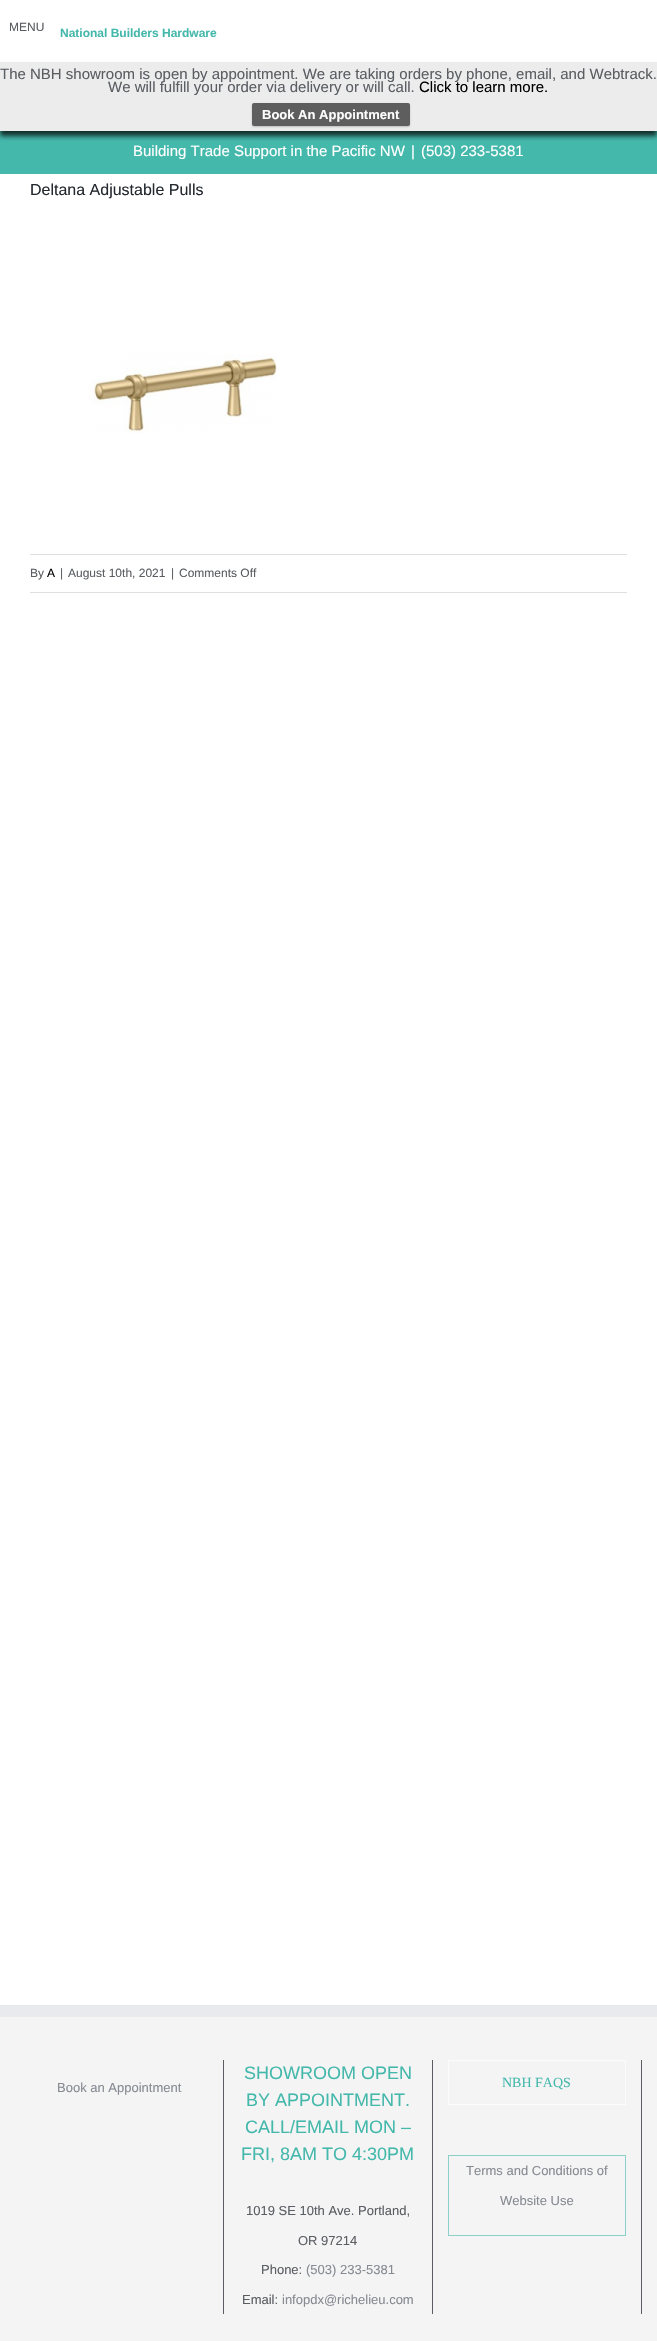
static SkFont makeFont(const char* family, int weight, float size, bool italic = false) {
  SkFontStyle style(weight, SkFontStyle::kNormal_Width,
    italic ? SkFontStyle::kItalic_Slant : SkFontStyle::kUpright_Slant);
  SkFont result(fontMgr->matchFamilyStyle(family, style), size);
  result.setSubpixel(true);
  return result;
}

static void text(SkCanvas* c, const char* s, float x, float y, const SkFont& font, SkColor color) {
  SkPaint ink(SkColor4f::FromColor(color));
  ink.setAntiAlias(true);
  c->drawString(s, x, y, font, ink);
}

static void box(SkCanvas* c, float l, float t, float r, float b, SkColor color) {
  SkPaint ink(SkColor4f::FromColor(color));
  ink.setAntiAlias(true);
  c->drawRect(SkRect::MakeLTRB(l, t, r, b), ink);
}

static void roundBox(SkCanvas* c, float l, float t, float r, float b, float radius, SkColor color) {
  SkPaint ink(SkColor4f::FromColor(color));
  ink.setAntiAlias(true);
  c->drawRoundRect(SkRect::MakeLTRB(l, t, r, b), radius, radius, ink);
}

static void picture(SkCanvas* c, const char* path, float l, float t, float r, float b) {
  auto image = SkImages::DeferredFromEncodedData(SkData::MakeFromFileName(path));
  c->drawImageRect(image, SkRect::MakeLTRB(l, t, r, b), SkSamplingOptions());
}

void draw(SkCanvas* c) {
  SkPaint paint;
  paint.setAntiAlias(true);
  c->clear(0xffffffff);
  SkFont face1 = makeFont("Liberation Sans", 400, 12);
  text(c, "MENU", 9, 31, face1, 0xff5a5d62);
  SkFont face2 = makeFont("Liberation Sans", 700, 12);
  text(c, "National Builders Hardware", 60, 37, face2, 0xff45b8ac);
  box(c, 0, 131, 657, 174, 0xff45b8ac);
  paint.setColor(0xbf000000);
  paint.setMaskFilter(SkMaskFilter::MakeBlur(kNormal_SkBlurStyle, 2.5f));
  c->drawRect(SkRect::MakeLTRB(0, 67, 657, 136), paint);
  paint.setMaskFilter(nullptr);
  box(c, 0, 62, 657, 131, 0xffececec);
  SkFont face3 = makeFont("Liberation Sans", 400, 15);
  text(c, "The NBH showroom is open by appointment. We are taking orders by phone, email, and Webtrack.", 0, 79, face3, 0xff5a5d62);
  text(c, "We will fulfill your order via delivery or will call.", 108, 92, face3, 0xff5a5d62);
  text(c, "Click to learn more.", 419, 92, face3, 0xff000000);
  paint.setColor(0x33000000);
  paint.setMaskFilter(SkMaskFilter::MakeBlur(kNormal_SkBlurStyle, 1));
  c->drawRoundRect(SkRect::MakeLTRB(252, 104, 410, 127), 2, 2, paint);
  paint.setMaskFilter(nullptr);
  roundBox(c, 252, 103, 410, 126, 2, 0xff5e5e5e);
  SkFont face4 = makeFont("Liberation Sans", 700, 13);
  text(c, "Book An Appointment", 262, 119, face4, 0xffffffff);
  text(c, "Building Trade Support in the Pacific NW", 133, 156, face3, 0xffffffff);
  text(c, "|", 411, 156, face3, 0xffffffff);
  text(c, "(503) 233-5381", 421, 156, face3, 0xffffffff);
  SkFont face5 = makeFont("Liberation Sans", 400, 16);
  text(c, "Deltana Adjustable Pulls", 30, 195, face5, 0xff242930);
  picture(c, "img_01.png", 89, 354, 277, 433);
  box(c, 30, 554, 627, 555, 0xffe0dede);
  box(c, 30, 592, 627, 593, 0xffe0dede);
  text(c, "By", 30, 577, face1, 0xff5a5d62);
  text(c, "A", 47, 577, face1, 0xff000000);
  text(c, "|", 60, 577, face1, 0xff5a5d62);
  text(c, "August 10th, 2021", 68, 577, face1, 0xff5a5d62);
  text(c, "|", 171, 577, face1, 0xff5a5d62);
  text(c, "Comments Off", 179, 577, face1, 0xff5a5d62);
  box(c, 0, 2017, 657, 2341, 0xfff4f4f4);
  box(c, 0, 2005, 657, 2017, 0xffe9eaee);
  box(c, 223, 2060, 224, 2314, 0xff5a5d62);
  SkFont face6 = makeFont("Liberation Sans", 400, 13);
  text(c, "Book an Appointment", 57, 2092, face6, 0xff868a92);
  box(c, 432, 2060, 433, 2314, 0xff5a5d62);
  SkFont face7 = makeFont("Liberation Sans", 400, 18);
  text(c, "SHOWROOM OPEN", 244, 2079, face7, 0xff45b8ac);
  text(c, "BY APPOINTMENT.", 246, 2106, face7, 0xff45b8ac);
  text(c, "CALL/EMAIL MON –", 245, 2133, face7, 0xff45b8ac);
  text(c, "FRI, 8AM TO 4:30PM", 241, 2160, face7, 0xff45b8ac);
  text(c, "1019 SE 10th Ave. Portland,", 246, 2215, face6, 0xff5a5d62);
  text(c, "OR 97214", 298, 2245, face6, 0xff5a5d62);
  text(c, "Phone:", 261, 2274, face6, 0xff5a5d62);
  text(c, "(503) 233-5381", 306, 2274, face6, 0xff868a92);
  text(c, "Email:", 242, 2304, face6, 0xff5a5d62);
  text(c, "infopdx@richelieu.com", 282, 2304, face6, 0xff868a92);
  box(c, 641, 2060, 642, 2314, 0xff5a5d62);
  paint.setStyle(SkPaint::kStroke_Style);
  paint.setStrokeWidth(1);
  paint.setColor(0xfffcfcfc);
  c->drawRect(SkRect::MakeLTRB(448.5f, 2060.5f, 625.5f, 2104.5f), paint);
  SkFont face8 = makeFont("Liberation Serif", 400, 14);
  text(c, "NBH FAQS", 502, 2087, face8, 0xff45b8ac);
  paint.setColor(0xff8bd0c9);
  c->drawRect(SkRect::MakeLTRB(448.5f, 2155.5f, 625.5f, 2235.5f), paint);
  text(c, "Terms and Conditions of", 466, 2175, face6, 0xff868a92);
  text(c, "Website Use", 500, 2205, face6, 0xff868a92);
}
